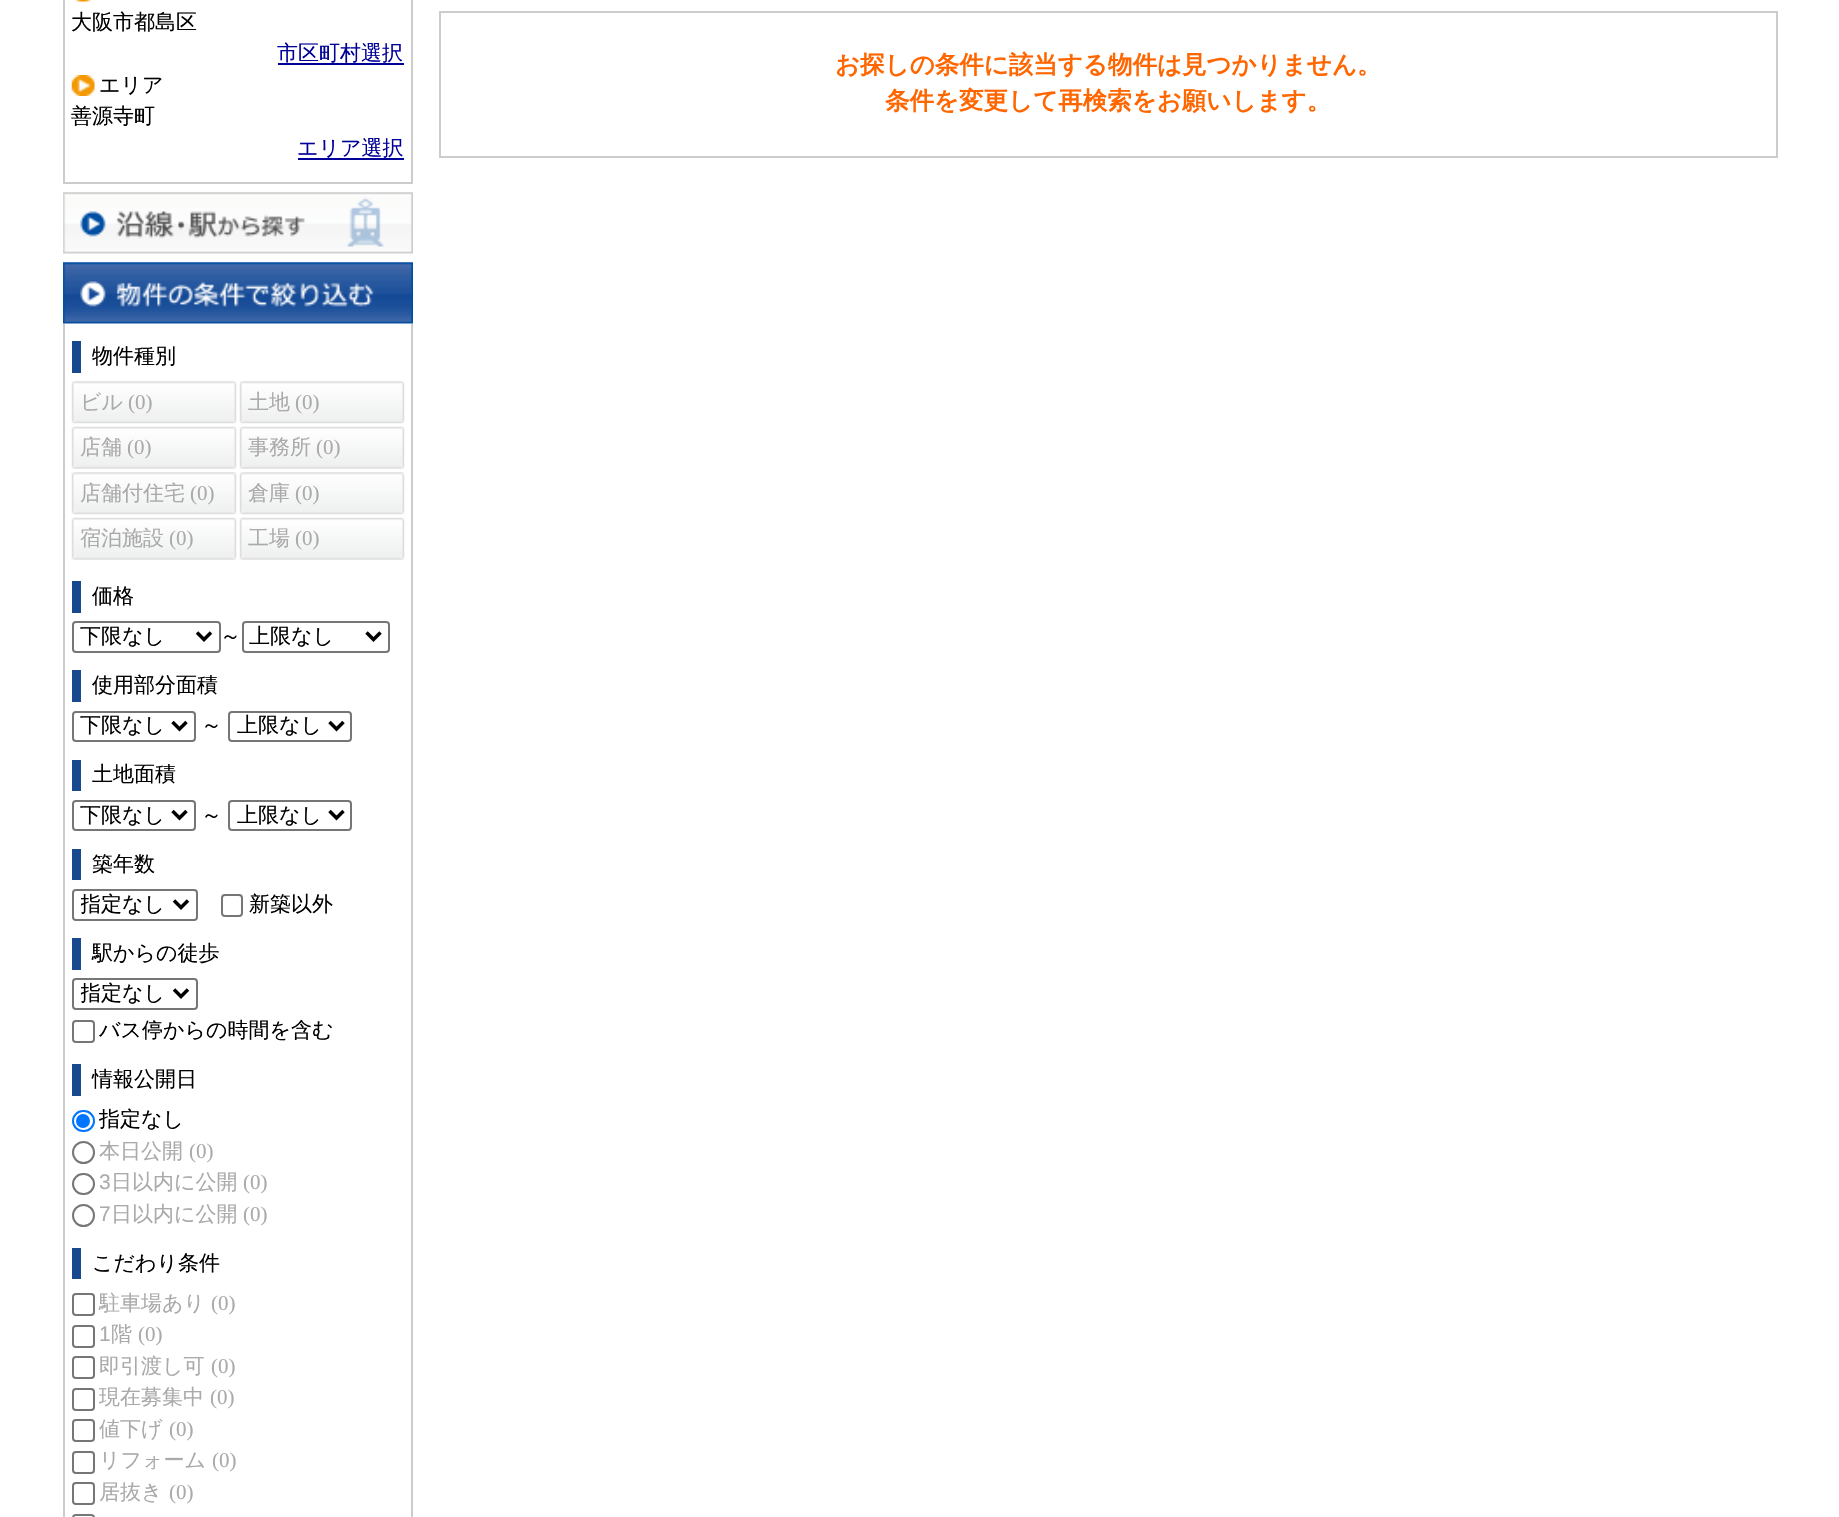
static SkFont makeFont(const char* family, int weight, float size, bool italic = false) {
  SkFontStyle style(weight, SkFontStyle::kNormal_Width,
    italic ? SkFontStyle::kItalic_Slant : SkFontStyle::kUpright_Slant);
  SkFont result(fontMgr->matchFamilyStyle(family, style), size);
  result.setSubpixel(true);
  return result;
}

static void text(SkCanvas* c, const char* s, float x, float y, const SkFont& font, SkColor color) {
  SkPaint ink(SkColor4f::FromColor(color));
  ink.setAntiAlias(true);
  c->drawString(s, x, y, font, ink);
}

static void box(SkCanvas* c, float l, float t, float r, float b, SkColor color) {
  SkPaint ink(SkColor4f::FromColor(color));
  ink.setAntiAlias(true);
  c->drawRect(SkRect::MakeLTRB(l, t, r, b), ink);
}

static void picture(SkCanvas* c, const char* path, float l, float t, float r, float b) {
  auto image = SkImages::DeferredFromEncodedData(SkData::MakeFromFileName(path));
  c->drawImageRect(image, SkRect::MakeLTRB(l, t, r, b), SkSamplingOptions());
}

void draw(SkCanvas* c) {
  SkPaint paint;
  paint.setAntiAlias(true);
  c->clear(0xffffffff);
  box(c, 411, 0, 413, 184, 0xffcccccc);
  box(c, 63, 182, 413, 184, 0xffcccccc);
  box(c, 63, 0, 65, 184, 0xffcccccc);
  picture(c, "img_01.png", 75, 0, 92, 2);
  SkFont face1 = makeFont("WenQuanYi Zen Hei", 500, 21);
  text(c, "大阪市都島区", 71, 29, face1, 0xff000000);
  text(c, "市区町村選択", 277, 60, face1, 0xff000099);
  box(c, 278, 63, 404, 65, 0xff000099);
  picture(c, "img_02.png", 71, 75, 95, 96);
  text(c, "エリア", 99, 92, face1, 0xff000000);
  text(c, "善源寺町", 71, 123, face1, 0xff000000);
  text(c, "エリア選択", 297, 155, face1, 0xff000099);
  box(c, 298, 158, 404, 160, 0xff000099);
  picture(c, "img_03.png", 63, 192, 413, 254);
  picture(c, "img_04.png", 63, 262, 413, 324);
  box(c, 411, 324, 413, 1517, 0xffcccccc);
  box(c, 63, 324, 65, 1517, 0xffcccccc);
  box(c, 72, 341, 81, 373, 0xff18488e);
  text(c, "物件種別", 92, 363, face1, 0xff000000);
  picture(c, "img_05.png", 71, 381, 237, 424);
  text(c, "ビル", 80, 409, face1, 0xffaaaaaa);
  SkFont face2 = makeFont("Liberation Serif", 400, 21);
  text(c, "(0)", 128, 409, face2, 0xffaaaaaa);
  picture(c, "img_05.png", 239, 381, 405, 424);
  text(c, "土地", 248, 409, face1, 0xffaaaaaa);
  text(c, "(0)", 295, 409, face2, 0xffaaaaaa);
  picture(c, "img_06.png", 71, 426, 237, 469);
  text(c, "店舗", 80, 454, face1, 0xffaaaaaa);
  text(c, "(0)", 127, 454, face2, 0xffaaaaaa);
  picture(c, "img_06.png", 239, 426, 405, 469);
  text(c, "事務所", 248, 454, face1, 0xffaaaaaa);
  text(c, "(0)", 316, 454, face2, 0xffaaaaaa);
  picture(c, "img_05.png", 71, 472, 237, 515);
  text(c, "店舗付住宅", 80, 500, face1, 0xffaaaaaa);
  text(c, "(0)", 190, 500, face2, 0xffaaaaaa);
  picture(c, "img_05.png", 239, 472, 405, 515);
  text(c, "倉庫", 248, 500, face1, 0xffaaaaaa);
  text(c, "(0)", 295, 500, face2, 0xffaaaaaa);
  picture(c, "img_06.png", 71, 517, 237, 560);
  text(c, "宿泊施設", 80, 545, face1, 0xffaaaaaa);
  text(c, "(0)", 169, 545, face2, 0xffaaaaaa);
  picture(c, "img_06.png", 239, 517, 405, 560);
  text(c, "工場", 248, 545, face1, 0xffaaaaaa);
  text(c, "(0)", 295, 545, face2, 0xffaaaaaa);
  box(c, 72, 581, 81, 613, 0xff18488e);
  text(c, "価格", 92, 603, face1, 0xff000000);
  paint.setStyle(SkPaint::kStroke_Style);
  paint.setStrokeWidth(2);
  paint.setColor(0xff767676);
  c->drawRoundRect(SkRect::MakeLTRB(73, 622, 220, 652), 3, 3, paint);
  paint.setStrokeWidth(3.5f);
  paint.setColor(0xff000000);
  c->drawPath(SkPathBuilder().moveTo(197, 632.5f).lineTo(204, 639.5f).lineTo(211, 632.5f).detach(), paint);
  text(c, "下限なし", 80, 643, face1, 0xff000000);
  text(c, "～", 220, 643, face1, 0xff000000);
  paint.setStrokeWidth(2);
  paint.setColor(0xff767676);
  c->drawRoundRect(SkRect::MakeLTRB(243, 622, 389, 652), 3, 3, paint);
  paint.setStrokeWidth(3.5f);
  paint.setColor(0xff000000);
  c->drawPath(SkPathBuilder().moveTo(366.5f, 632.5f).lineTo(373.5f, 639.5f).lineTo(380.5f, 632.5f).detach(), paint);
  text(c, "上限なし", 249, 643, face1, 0xff000000);
  box(c, 72, 670, 81, 702, 0xff18488e);
  text(c, "使用部分面積", 92, 692, face1, 0xff000000);
  paint.setStrokeWidth(2);
  paint.setColor(0xff767676);
  c->drawRoundRect(SkRect::MakeLTRB(73, 712, 195, 741), 3, 3, paint);
  paint.setStrokeWidth(3.5f);
  paint.setColor(0xff000000);
  c->drawPath(SkPathBuilder().moveTo(172.5f, 722).lineTo(179.5f, 729).lineTo(186.5f, 722).detach(), paint);
  text(c, "下限なし", 80, 732, face1, 0xff000000);
  text(c, "～", 201, 732, face1, 0xff000000);
  paint.setStrokeWidth(2);
  paint.setColor(0xff767676);
  c->drawRoundRect(SkRect::MakeLTRB(229, 712, 351, 741), 3, 3, paint);
  paint.setStrokeWidth(3.5f);
  paint.setColor(0xff000000);
  c->drawPath(SkPathBuilder().moveTo(329.5f, 722).lineTo(336.5f, 729).lineTo(343.5f, 722).detach(), paint);
  text(c, "上限なし", 237, 732, face1, 0xff000000);
  box(c, 72, 760, 81, 791, 0xff18488e);
  text(c, "土地面積", 92, 781, face1, 0xff000000);
  paint.setStrokeWidth(2);
  paint.setColor(0xff767676);
  c->drawRoundRect(SkRect::MakeLTRB(73, 801, 195, 830), 3, 3, paint);
  paint.setStrokeWidth(3.5f);
  paint.setColor(0xff000000);
  c->drawPath(SkPathBuilder().moveTo(172.5f, 811).lineTo(179.5f, 818).lineTo(186.5f, 811).detach(), paint);
  text(c, "下限なし", 80, 822, face1, 0xff000000);
  text(c, "～", 201, 822, face1, 0xff000000);
  paint.setStrokeWidth(2);
  paint.setColor(0xff767676);
  c->drawRoundRect(SkRect::MakeLTRB(229, 801, 351, 830), 3, 3, paint);
  paint.setStrokeWidth(3.5f);
  paint.setColor(0xff000000);
  c->drawPath(SkPathBuilder().moveTo(329.5f, 811).lineTo(336.5f, 818).lineTo(343.5f, 811).detach(), paint);
  text(c, "上限なし", 237, 822, face1, 0xff000000);
  box(c, 72, 849, 81, 880, 0xff18488e);
  text(c, "築年数", 92, 871, face1, 0xff000000);
  paint.setStrokeWidth(2);
  paint.setColor(0xff767676);
  c->drawRoundRect(SkRect::MakeLTRB(73, 890, 197, 920), 3, 3, paint);
  paint.setStrokeWidth(3.5f);
  paint.setColor(0xff000000);
  c->drawPath(SkPathBuilder().moveTo(174, 900.5f).lineTo(181, 907.5f).lineTo(188, 900.5f).detach(), paint);
  c->save();
  c->clipRect(SkRect::MakeLTRB(81, 891, 168, 919));
  text(c, "指定なし", 80, 911, face1, 0xff000000);
  c->restore();
  paint.setStrokeWidth(2);
  paint.setColor(0xff767676);
  c->drawRoundRect(SkRect::MakeLTRB(222, 895, 242, 916), 3, 3, paint);
  text(c, "新築以外", 249, 911, face1, 0xff000000);
  box(c, 72, 938, 81, 970, 0xff18488e);
  text(c, "駅からの徒歩", 92, 960, face1, 0xff000000);
  c->drawRoundRect(SkRect::MakeLTRB(73, 979, 197, 1009), 3, 3, paint);
  paint.setStrokeWidth(3.5f);
  paint.setColor(0xff000000);
  c->drawPath(SkPathBuilder().moveTo(174, 989.5f).lineTo(181, 996.5f).lineTo(188, 989.5f).detach(), paint);
  c->save();
  c->clipRect(SkRect::MakeLTRB(81, 980, 168, 1008));
  text(c, "指定なし", 80, 1000, face1, 0xff000000);
  c->restore();
  paint.setStrokeWidth(2);
  paint.setColor(0xff767676);
  c->drawRoundRect(SkRect::MakeLTRB(73, 1021, 94, 1042), 3, 3, paint);
  text(c, "バス停からの時間を含む", 99, 1037, face1, 0xff000000);
  box(c, 72, 1064, 81, 1096, 0xff18488e);
  text(c, "情報公開日", 92, 1086, face1, 0xff000000);
  paint.setColor(0xff0075ff);
  c->drawRoundRect(SkRect::MakeLTRB(73, 1111, 94, 1131), 10, 10, paint);
  paint.setStyle(SkPaint::kFill_Style);
  c->drawCircle(83, 1121, 7, paint);
  text(c, "指定なし", 99, 1126, face1, 0xff000000);
  paint.setStyle(SkPaint::kStroke_Style);
  paint.setColor(0xff767676);
  c->drawCircle(83.5f, 1152.5f, 10.5f, paint);
  text(c, "本日公開", 99, 1158, face1, 0xffaaaaaa);
  text(c, "(0)", 189, 1158, face2, 0xffaaaaaa);
  c->drawRoundRect(SkRect::MakeLTRB(73, 1174, 94, 1194), 10, 10, paint);
  SkFont face3 = makeFont("Liberation Sans", 400, 21);
  text(c, "3", 99, 1189, face3, 0xffaaaaaa);
  text(c, "日以内に公開", 111, 1189, face1, 0xffaaaaaa);
  text(c, "(0)", 243, 1189, face2, 0xffaaaaaa);
  c->drawCircle(83.5f, 1215.5f, 10.5f, paint);
  text(c, "7", 99, 1221, face3, 0xffaaaaaa);
  text(c, "日以内に公開", 111, 1221, face1, 0xffaaaaaa);
  text(c, "(0)", 243, 1221, face2, 0xffaaaaaa);
  box(c, 72, 1248, 81, 1279, 0xff18488e);
  text(c, "こだわり条件", 92, 1270, face1, 0xff000000);
  c->drawRoundRect(SkRect::MakeLTRB(73, 1294, 94, 1315), 3, 3, paint);
  text(c, "駐車場あり", 99, 1310, face1, 0xffaaaaaa);
  text(c, "(0)", 211, 1310, face2, 0xffaaaaaa);
  c->drawRoundRect(SkRect::MakeLTRB(73, 1326, 94, 1347), 3, 3, paint);
  text(c, "1", 99, 1341, face3, 0xffaaaaaa);
  text(c, "階", 111, 1341, face1, 0xffaaaaaa);
  text(c, "(0)", 138, 1341, face2, 0xffaaaaaa);
  c->drawRoundRect(SkRect::MakeLTRB(73, 1357, 94, 1378), 3, 3, paint);
  text(c, "即引渡し可", 99, 1373, face1, 0xffaaaaaa);
  text(c, "(0)", 211, 1373, face2, 0xffaaaaaa);
  c->drawRoundRect(SkRect::MakeLTRB(73, 1389, 94, 1410), 3, 3, paint);
  text(c, "現在募集中", 99, 1404, face1, 0xffaaaaaa);
  text(c, "(0)", 210, 1404, face2, 0xffaaaaaa);
  c->drawRoundRect(SkRect::MakeLTRB(73, 1420, 94, 1441), 3, 3, paint);
  text(c, "値下げ", 99, 1436, face1, 0xffaaaaaa);
  text(c, "(0)", 169, 1436, face2, 0xffaaaaaa);
  c->drawRoundRect(SkRect::MakeLTRB(73, 1452, 94, 1473), 3, 3, paint);
  text(c, "リフォーム", 99, 1467, face1, 0xffaaaaaa);
  text(c, "(0)", 212, 1467, face2, 0xffaaaaaa);
  c->drawRoundRect(SkRect::MakeLTRB(73, 1483, 94, 1504), 3, 3, paint);
  text(c, "居抜き", 99, 1499, face1, 0xffaaaaaa);
  text(c, "(0)", 169, 1499, face2, 0xffaaaaaa);
  c->drawRoundRect(SkRect::MakeLTRB(73, 1515, 94, 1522), 3, 3, paint);
  paint.setColor(0xffcccccc);
  c->drawRect(SkRect::MakeLTRB(440, 12, 1777, 157), paint);
  SkFont face4 = makeFont("WenQuanYi Zen Hei", 700, 24.5f);
  text(c, "お探しの条件に該当する物件は見つかりません。", 835, 73, face4, 0xffff6600);
  text(c, "条件を変更して再検索をお願いします。", 885, 109, face4, 0xffff6600);
}
